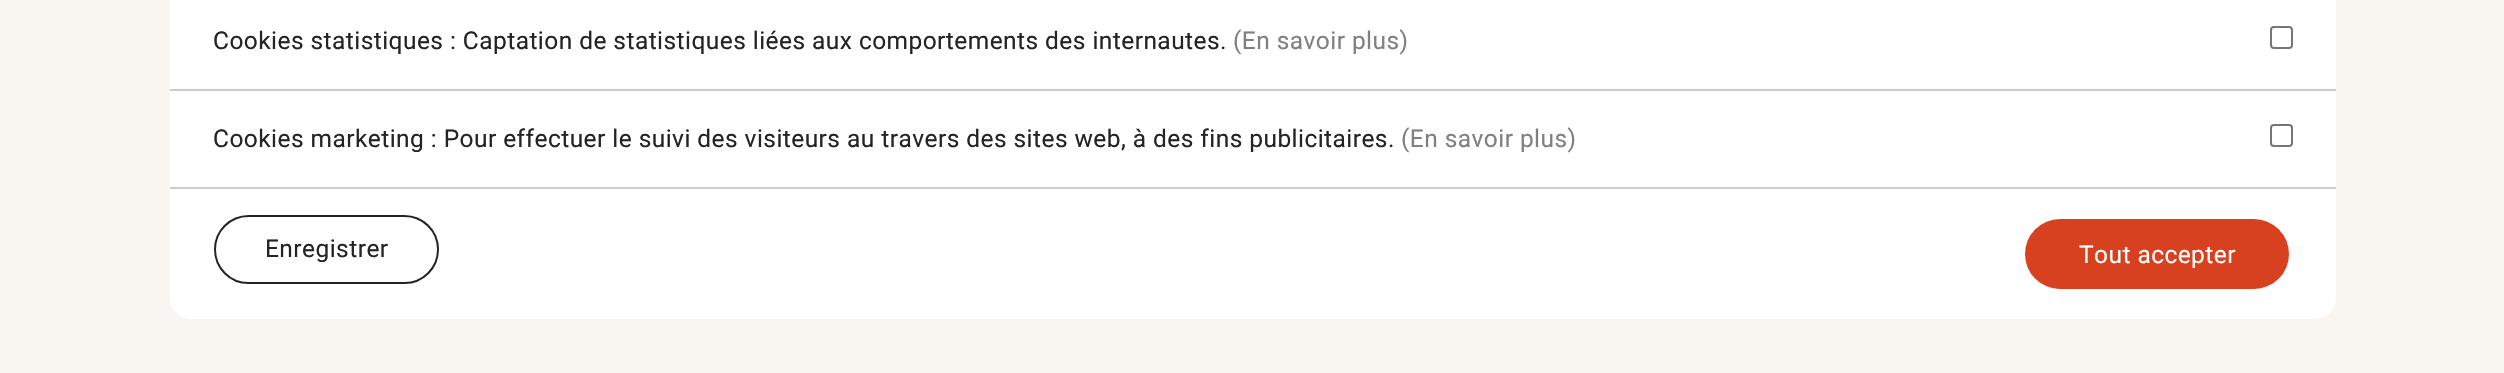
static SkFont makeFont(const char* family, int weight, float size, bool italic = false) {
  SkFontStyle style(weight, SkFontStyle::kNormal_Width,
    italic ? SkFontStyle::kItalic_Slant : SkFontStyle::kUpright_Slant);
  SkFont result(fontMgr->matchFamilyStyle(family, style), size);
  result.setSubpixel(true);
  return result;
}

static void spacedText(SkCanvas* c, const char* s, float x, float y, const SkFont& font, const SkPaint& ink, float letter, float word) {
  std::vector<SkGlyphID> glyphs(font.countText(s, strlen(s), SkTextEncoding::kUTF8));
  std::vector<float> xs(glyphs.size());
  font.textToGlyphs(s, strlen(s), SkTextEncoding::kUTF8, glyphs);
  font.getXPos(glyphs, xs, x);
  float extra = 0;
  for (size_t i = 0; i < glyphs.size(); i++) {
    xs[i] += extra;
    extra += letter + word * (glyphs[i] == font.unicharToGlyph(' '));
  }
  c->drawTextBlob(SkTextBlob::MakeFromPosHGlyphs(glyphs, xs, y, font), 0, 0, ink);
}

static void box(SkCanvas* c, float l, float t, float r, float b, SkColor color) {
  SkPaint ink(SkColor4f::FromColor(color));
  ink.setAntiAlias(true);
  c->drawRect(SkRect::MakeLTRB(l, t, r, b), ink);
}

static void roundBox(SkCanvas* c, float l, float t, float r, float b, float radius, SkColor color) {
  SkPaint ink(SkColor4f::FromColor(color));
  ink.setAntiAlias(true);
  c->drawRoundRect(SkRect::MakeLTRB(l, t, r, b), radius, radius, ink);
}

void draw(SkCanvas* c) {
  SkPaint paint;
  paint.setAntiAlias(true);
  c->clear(0xfff9f6f1);
  box(c, 170, 0, 2336, 89, 0xffffffff);
  box(c, 170, 89, 2336, 91, 0xffcccccc);
  SkFont face1 = makeFont("Roboto", 400, 24.5f);
  paint.setColor(0xff262422);
  spacedText(c, "Cookies statistiques : Captation de statistiques liées aux comportements des internautes.", 213, 49, face1, paint, 0.44f, 0);
  paint.setColor(0xff808080);
  spacedText(c, "(En savoir plus)", 1233, 49, face1, paint, 0.44f, 0);
  paint.setStyle(SkPaint::kStroke_Style);
  paint.setStrokeWidth(2);
  paint.setColor(0xff767676);
  c->drawRoundRect(SkRect::MakeLTRB(2271, 27, 2292, 48), 3, 3, paint);
  box(c, 170, 91, 2336, 187, 0xffffffff);
  box(c, 170, 187, 2336, 189, 0xffcccccc);
  paint.setStyle(SkPaint::kFill_Style);
  paint.setColor(0xff262422);
  spacedText(c, "Cookies marketing : Pour effectuer le suivi des visiteurs au travers des sites web, à des fins publicitaires.", 213, 147, face1, paint, 0.44f, 0);
  paint.setColor(0xff808080);
  spacedText(c, "(En savoir plus)", 1401, 147, face1, paint, 0.44f, 0);
  paint.setStyle(SkPaint::kStroke_Style);
  paint.setColor(0xff767676);
  c->drawRoundRect(SkRect::MakeLTRB(2271, 125, 2292, 146), 3, 3, paint);
  paint.setStyle(SkPaint::kFill_Style);
  paint.setColor(0xffffffff);
  c->drawPath(SkPathBuilder().moveTo(170, 189).lineTo(2336, 189).lineTo(2336, 298).cubicTo(2336, 309.5f, 2326.5f, 319, 2315, 319).lineTo(191, 319).cubicTo(179.5f, 319, 170, 309.5f, 170, 298).close().detach(), paint);
  paint.setStyle(SkPaint::kStroke_Style);
  paint.setColor(0xff262422);
  c->drawRoundRect(SkRect::MakeLTRB(215, 216, 438, 283), 33.5f, 33.5f, paint);
  paint.setStyle(SkPaint::kFill_Style);
  spacedText(c, "Enregistrer", 265, 257, face1, paint, 0.44f, 0);
  roundBox(c, 2025, 219, 2289, 289, 35, 0xffd74120);
  paint.setColor(0xffffffff);
  spacedText(c, "Tout accepter", 2079, 263, face1, paint, 0.44f, 0);
}
